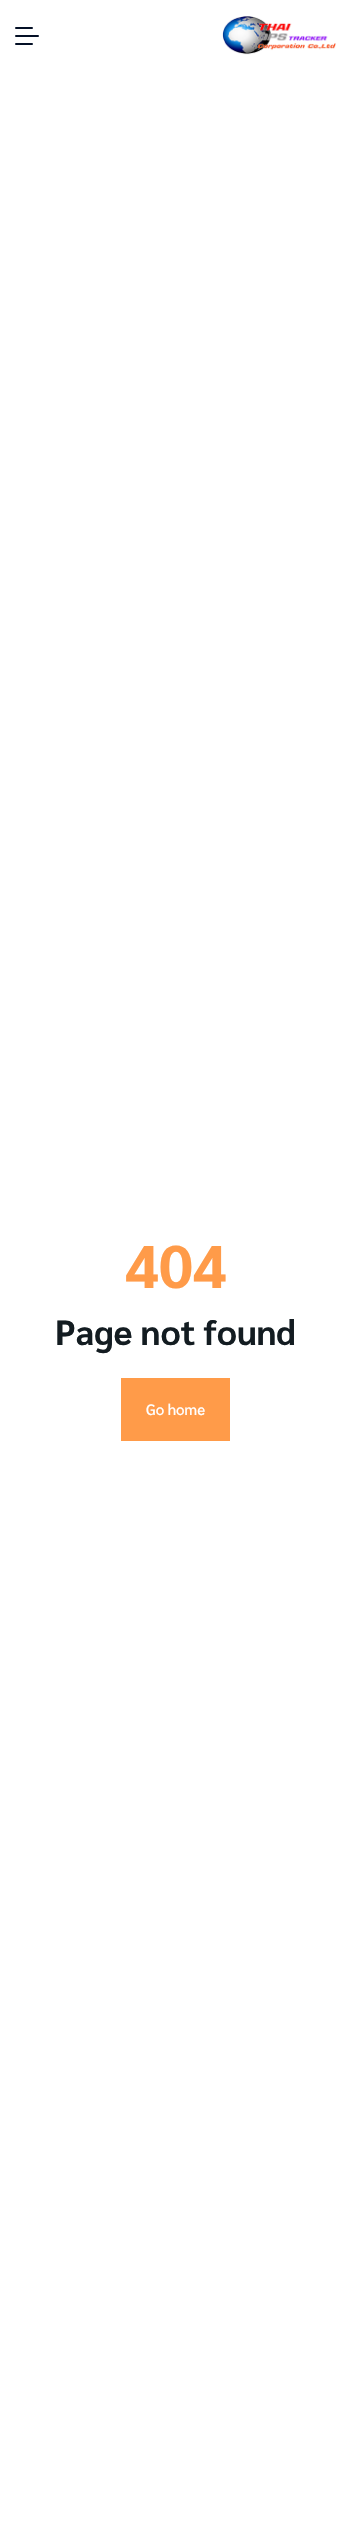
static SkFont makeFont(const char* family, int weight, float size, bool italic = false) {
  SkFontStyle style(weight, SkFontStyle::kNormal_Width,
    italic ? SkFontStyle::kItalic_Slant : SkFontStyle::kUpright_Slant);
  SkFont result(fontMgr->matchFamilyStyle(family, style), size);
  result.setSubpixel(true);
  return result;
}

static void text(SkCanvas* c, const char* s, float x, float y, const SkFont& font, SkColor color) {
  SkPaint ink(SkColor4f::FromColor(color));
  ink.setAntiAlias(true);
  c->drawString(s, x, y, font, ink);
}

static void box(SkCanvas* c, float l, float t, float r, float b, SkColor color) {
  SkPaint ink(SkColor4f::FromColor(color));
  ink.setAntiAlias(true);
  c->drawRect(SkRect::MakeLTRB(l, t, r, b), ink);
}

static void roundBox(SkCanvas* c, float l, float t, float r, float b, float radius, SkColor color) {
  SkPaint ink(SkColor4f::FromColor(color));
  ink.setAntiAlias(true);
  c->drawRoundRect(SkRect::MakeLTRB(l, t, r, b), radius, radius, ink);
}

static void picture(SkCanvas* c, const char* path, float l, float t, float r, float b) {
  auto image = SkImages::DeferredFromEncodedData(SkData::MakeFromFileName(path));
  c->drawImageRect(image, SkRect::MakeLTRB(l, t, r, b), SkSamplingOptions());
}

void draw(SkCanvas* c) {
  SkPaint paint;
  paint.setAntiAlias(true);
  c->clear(0xffffffff);
  roundBox(c, 15, 35, 39, 37, 1, 0xff041026);
  roundBox(c, 15, 27, 33, 29, 1, 0xff041026);
  roundBox(c, 15, 43, 33, 45, 1, 0xff041026);
  picture(c, "img_01.png", 222, 16, 336, 55);
  SkFont face1 = makeFont("Sarabun", 700, 60);
  text(c, "404", 125, 1288, face1, 0xffff9b49);
  SkFont face2 = makeFont("Sarabun", 700, 35);
  text(c, "Page not found", 55, 1345, face2, 0xff131c21);
  box(c, 121, 1378, 230, 1441, 0xffff9b49);
  SkFont face3 = makeFont("Sarabun", 500, 15);
  text(c, "Go home", 146, 1415, face3, 0xffffffff);
}
